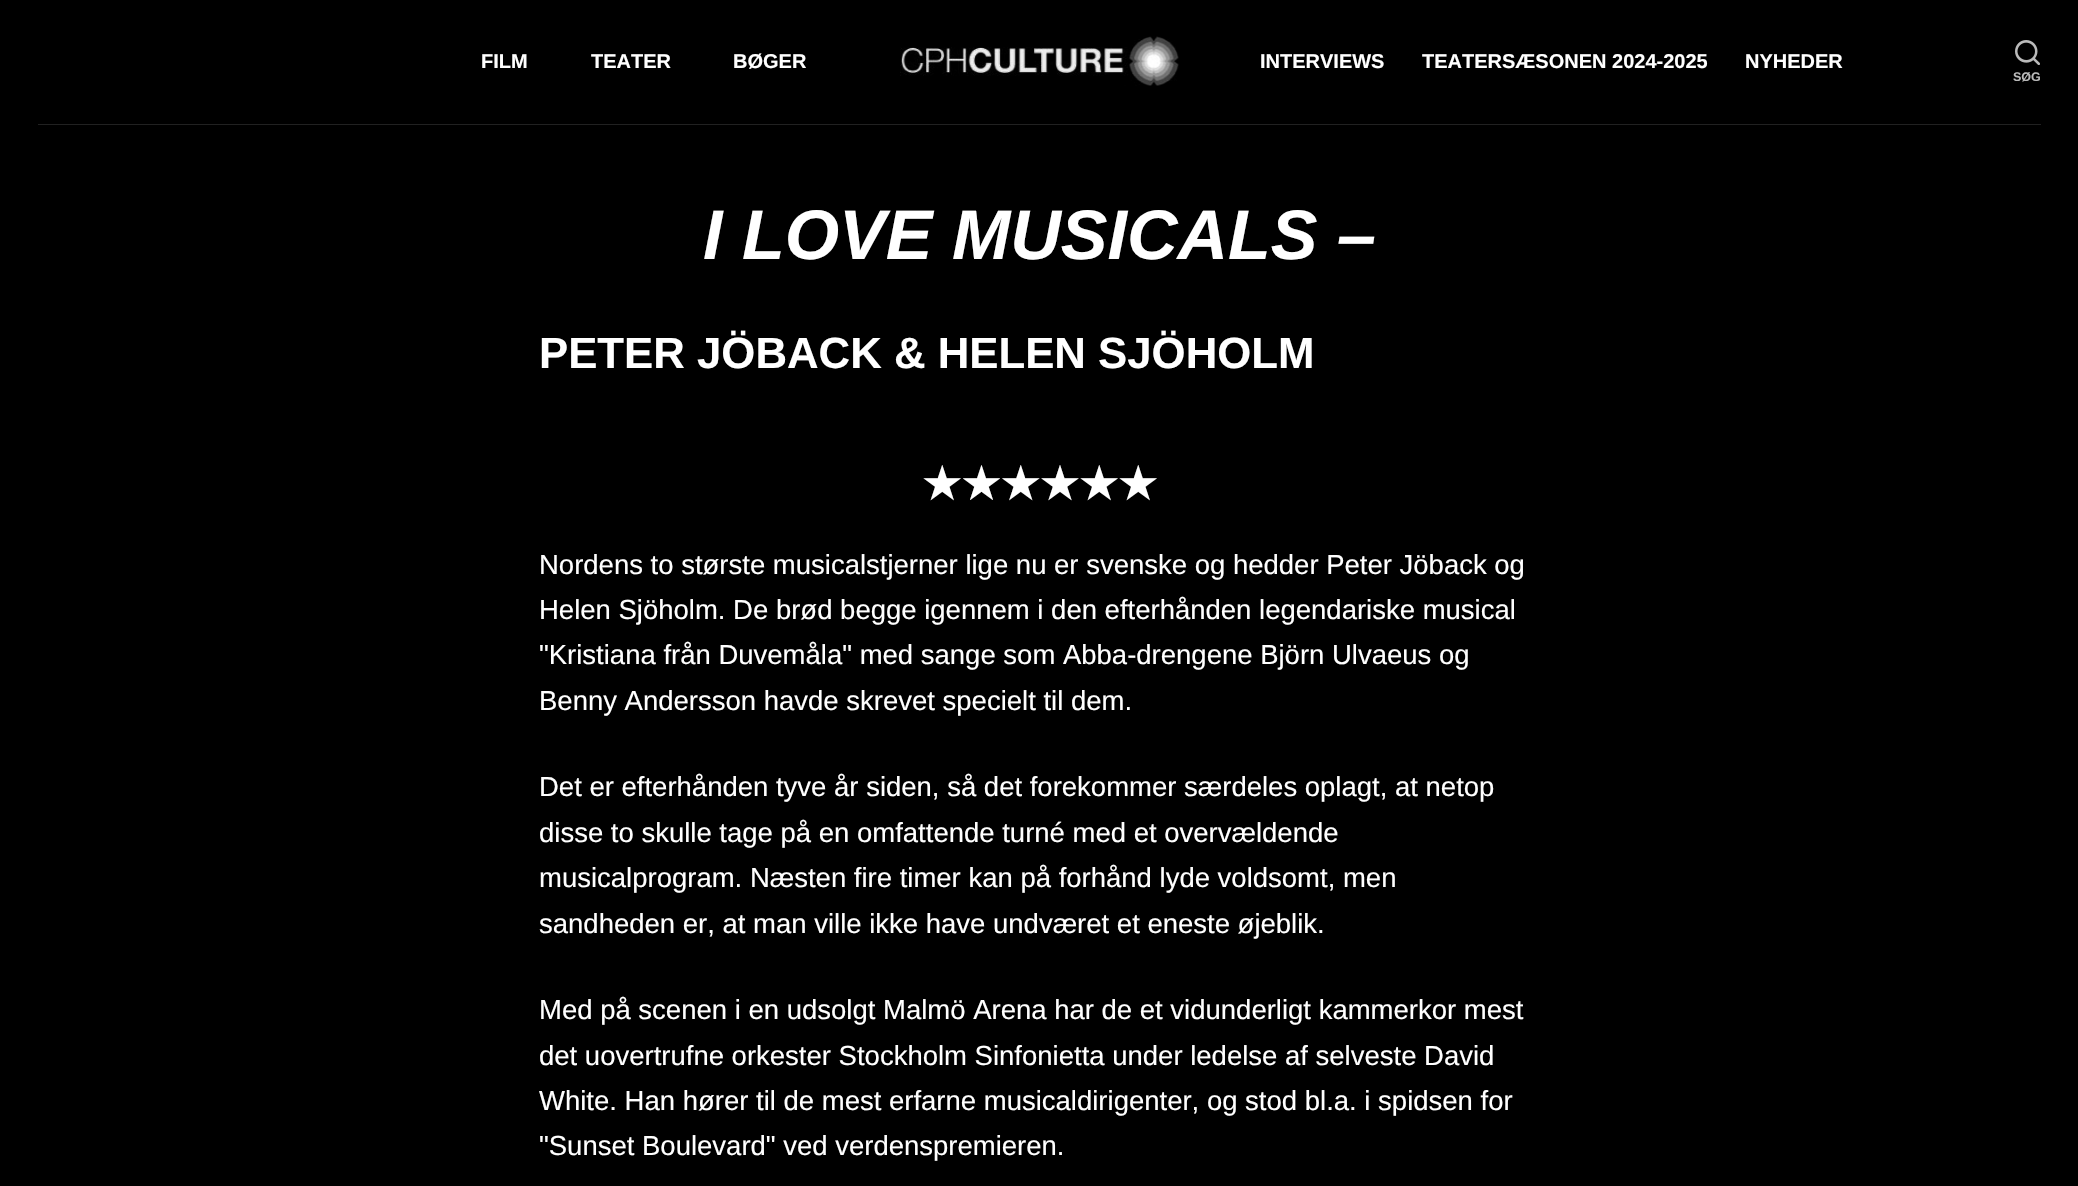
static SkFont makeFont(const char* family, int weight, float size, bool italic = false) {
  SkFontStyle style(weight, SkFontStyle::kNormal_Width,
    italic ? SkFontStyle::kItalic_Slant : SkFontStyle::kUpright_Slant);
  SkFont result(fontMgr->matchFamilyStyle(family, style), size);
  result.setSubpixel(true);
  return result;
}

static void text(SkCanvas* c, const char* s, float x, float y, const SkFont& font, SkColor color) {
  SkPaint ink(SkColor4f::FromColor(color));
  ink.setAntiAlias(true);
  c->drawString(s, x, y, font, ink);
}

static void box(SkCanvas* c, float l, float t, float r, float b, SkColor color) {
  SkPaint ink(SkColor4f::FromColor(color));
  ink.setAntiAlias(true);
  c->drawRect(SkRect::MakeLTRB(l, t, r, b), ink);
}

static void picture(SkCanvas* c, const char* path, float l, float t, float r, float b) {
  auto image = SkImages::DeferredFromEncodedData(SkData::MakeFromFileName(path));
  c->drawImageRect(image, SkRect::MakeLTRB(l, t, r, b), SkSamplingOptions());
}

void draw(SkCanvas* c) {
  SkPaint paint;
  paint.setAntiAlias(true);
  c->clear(0xff000000);
  box(c, 38, 124, 2041, 125, 0xff212121);
  SkFont face1 = makeFont("Liberation Sans", 700, 20);
  text(c, "FILM", 481, 68, face1, 0xffffffff);
  text(c, "TEATER", 591, 68, face1, 0xffffffff);
  text(c, "BØGER", 733, 68, face1, 0xffffffff);
  picture(c, "img_01.png", 900, 36, 1179, 86);
  text(c, "INTERVIEWS", 1260, 68, face1, 0xffffffff);
  text(c, "TEATERSÆSONEN 2024-2025", 1422, 68, face1, 0xffffffff);
  text(c, "NYHEDER", 1745, 68, face1, 0xffffffff);
  picture(c, "img_02.png", 2015, 40, 2040, 65);
  SkFont face2 = makeFont("Liberation Sans", 700, 12.5f);
  text(c, "SØG", 2013, 81, face2, 0xffbababa);
  SkFont face3 = makeFont("Liberation Sans", 700, 70, true);
  text(c, "I LOVE MUSICALS –", 703, 259, face3, 0xffffffff);
  SkFont face4 = makeFont("Liberation Sans", 700, 43.75f);
  text(c, "PETER JÖBACK & HELEN SJÖHOLM", 539, 368, face4, 0xffffffff);
  SkFont face5 = makeFont("DejaVu Sans", 700, 43.75f);
  text(c, "★★★★★★", 922, 499, face5, 0xffffffff);
  SkFont face6 = makeFont("Liberation Sans", 400, 27.5f);
  text(c, "Nordens to største musicalstjerner lige nu er svenske og hedder Peter Jöback og", 539, 574, face6, 0xffffffff);
  text(c, "Helen Sjöholm. De brød begge igennem i den efterhånden legendariske musical", 539, 619, face6, 0xffffffff);
  text(c, "\"Kristiana från Duvemåla\" med sange som Abba-drengene Björn Ulvaeus og", 539, 664, face6, 0xffffffff);
  text(c, "Benny Andersson havde skrevet specielt til dem.", 539, 710, face6, 0xffffffff);
  text(c, "Det er efterhånden tyve år siden, så det forekommer særdeles oplagt, at netop", 539, 796, face6, 0xffffffff);
  text(c, "disse to skulle tage på en omfattende turné med et overvældende", 539, 842, face6, 0xffffffff);
  text(c, "musicalprogram. Næsten fire timer kan på forhånd lyde voldsomt, men", 539, 887, face6, 0xffffffff);
  text(c, "sandheden er, at man ville ikke have undværet et eneste øjeblik.", 539, 933, face6, 0xffffffff);
  text(c, "Med på scenen i en udsolgt Malmö Arena har de et vidunderligt kammerkor mest", 539, 1019, face6, 0xffffffff);
  text(c, "det uovertrufne orkester Stockholm Sinfonietta under ledelse af selveste David", 539, 1065, face6, 0xffffffff);
  text(c, "White. Han hører til de mest erfarne musicaldirigenter, og stod bl.a. i spidsen for", 539, 1110, face6, 0xffffffff);
  text(c, "\"Sunset Boulevard\" ved verdenspremieren.", 539, 1155, face6, 0xffffffff);
}
